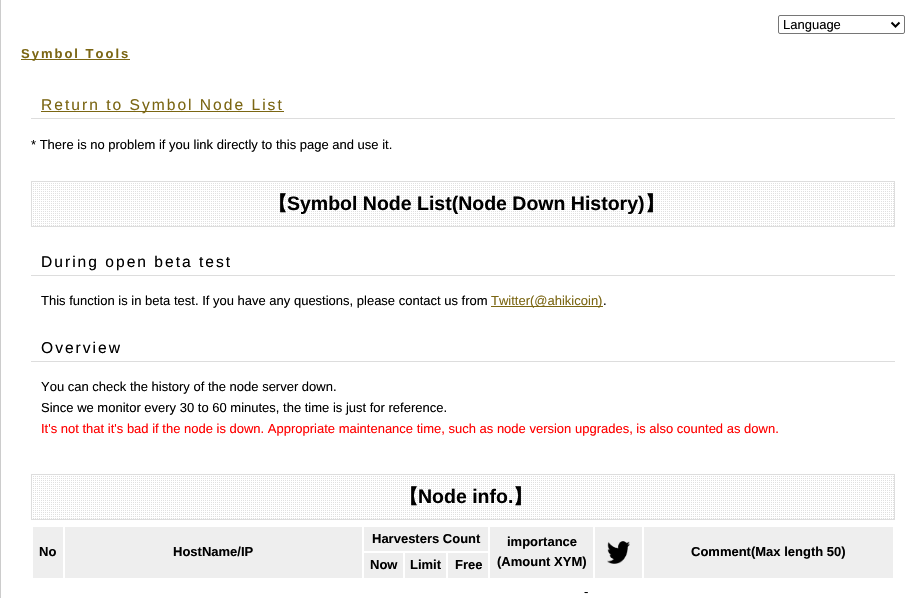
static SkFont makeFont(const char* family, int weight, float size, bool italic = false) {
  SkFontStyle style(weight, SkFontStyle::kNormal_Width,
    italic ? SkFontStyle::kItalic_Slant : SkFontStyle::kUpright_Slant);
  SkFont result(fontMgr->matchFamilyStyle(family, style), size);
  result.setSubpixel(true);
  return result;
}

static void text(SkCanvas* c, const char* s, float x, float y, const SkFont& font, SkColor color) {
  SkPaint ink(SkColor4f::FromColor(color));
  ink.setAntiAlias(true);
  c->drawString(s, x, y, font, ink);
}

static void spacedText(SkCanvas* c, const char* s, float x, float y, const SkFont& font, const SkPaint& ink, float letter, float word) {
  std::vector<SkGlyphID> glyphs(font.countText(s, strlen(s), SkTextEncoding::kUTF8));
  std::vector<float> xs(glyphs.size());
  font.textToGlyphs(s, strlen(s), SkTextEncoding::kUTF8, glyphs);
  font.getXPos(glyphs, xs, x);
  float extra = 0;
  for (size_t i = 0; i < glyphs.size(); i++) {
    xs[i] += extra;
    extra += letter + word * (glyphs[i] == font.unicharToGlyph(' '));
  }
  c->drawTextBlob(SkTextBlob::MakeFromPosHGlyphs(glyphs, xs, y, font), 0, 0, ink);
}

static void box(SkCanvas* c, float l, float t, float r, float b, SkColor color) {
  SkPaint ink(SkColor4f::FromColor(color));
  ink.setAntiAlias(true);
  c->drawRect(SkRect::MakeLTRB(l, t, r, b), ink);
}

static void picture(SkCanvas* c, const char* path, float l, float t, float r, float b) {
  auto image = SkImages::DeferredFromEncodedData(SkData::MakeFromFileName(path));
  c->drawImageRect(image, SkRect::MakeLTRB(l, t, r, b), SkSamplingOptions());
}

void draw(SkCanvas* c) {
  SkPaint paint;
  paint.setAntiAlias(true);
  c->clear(0xffffffff);
  box(c, 0, 0, 1, 598, 0xffcccccc);
  paint.setStyle(SkPaint::kStroke_Style);
  paint.setStrokeWidth(1);
  paint.setColor(0xff767676);
  c->drawRoundRect(SkRect::MakeLTRB(778.5f, 15.5f, 904.5f, 33.5f), 1.5f, 1.5f, paint);
  paint.setStrokeWidth(2);
  paint.setColor(0xff000000);
  c->drawPath(SkPathBuilder().moveTo(891.5f, 22.5f).lineTo(895.5f, 26.5f).lineTo(899.5f, 22.5f).detach(), paint);
  SkFont face1 = makeFont("Liberation Sans", 400, 13);
  text(c, "Language", 783, 29, face1, 0xff000000);
  box(c, 21, 59, 130, 60, 0xff7b6613);
  SkFont face2 = makeFont("Liberation Sans", 700, 13);
  paint.setStyle(SkPaint::kFill_Style);
  paint.setColor(0xff7b6613);
  spacedText(c, "Symbol Tools", 21, 58, face2, paint, 2, 0);
  box(c, 31, 118, 895, 119, 0xffdddddd);
  box(c, 41, 111, 284, 112, 0xff7b6613);
  SkFont face3 = makeFont("Liberation Sans", 400, 15.6f);
  spacedText(c, "Return to Symbol Node List", 41, 110, face3, paint, 2, 0);
  text(c, "* There is no problem if you link directly to this page and use it.", 31, 149, face1, 0xff000000);
  picture(c, "img_01.png", 33, 183, 894, 226);
  paint.setStyle(SkPaint::kStroke_Style);
  paint.setStrokeWidth(1);
  paint.setColor(0xffdddddd);
  c->drawRect(SkRect::MakeLTRB(31.5f, 181.5f, 894.5f, 226.5f), paint);
  SkFont face4 = makeFont("WenQuanYi Zen Hei", 700, 19.5f);
  text(c, "【", 268, 210, face4, 0xff000000);
  SkFont face5 = makeFont("Liberation Sans", 700, 19.5f);
  text(c, "Symbol Node List(Node Down History)", 287, 210, face5, 0xff000000);
  text(c, "】", 645, 210, face4, 0xff000000);
  box(c, 31, 275, 895, 276, 0xffdddddd);
  paint.setStyle(SkPaint::kFill_Style);
  paint.setColor(0xff000000);
  spacedText(c, "During open beta test", 41, 267, face3, paint, 2, 0);
  text(c, "This function is in beta test. If you have any questions, please contact us from", 41, 305, face1, 0xff000000);
  box(c, 491, 306, 603, 307, 0xff7b6613);
  text(c, "Twitter(@ahikicoin)", 491, 305, face1, 0xff7b6613);
  text(c, ".", 603, 305, face1, 0xff000000);
  box(c, 31, 361, 895, 362, 0xffdddddd);
  spacedText(c, "Overview", 41, 353, face3, paint, 2, 0);
  text(c, "You can check the history of the node server down.", 41, 391, face1, 0xff000000);
  text(c, "Since we monitor every 30 to 60 minutes, the time is just for reference.", 41, 412, face1, 0xff000000);
  text(c, "It's not that it's bad if the node is down. Appropriate maintenance time, such as node version upgrades, is also counted as down.", 41, 433, face1, 0xffff0000);
  picture(c, "img_01.png", 33, 476, 894, 519);
  paint.setStyle(SkPaint::kStroke_Style);
  paint.setColor(0xffdddddd);
  c->drawRect(SkRect::MakeLTRB(31.5f, 474.5f, 894.5f, 519.5f), paint);
  text(c, "【", 399, 503, face4, 0xff000000);
  text(c, "Node info.", 418, 503, face5, 0xff000000);
  text(c, "】", 513, 503, face4, 0xff000000);
  box(c, 33, 527, 63, 578, 0xffeeeeee);
  text(c, "No", 39, 556, face2, 0xff000000);
  box(c, 65, 527, 362, 578, 0xffeeeeee);
  text(c, "HostName/IP", 173, 556, face2, 0xff000000);
  box(c, 364, 527, 488, 551, 0xffeeeeee);
  text(c, "Harvesters Count", 372, 543, face2, 0xff000000);
  box(c, 490, 527, 593, 578, 0xffeeeeee);
  text(c, "importance", 507, 546, face2, 0xff000000);
  text(c, "(Amount XYM)", 497, 566, face2, 0xff000000);
  box(c, 595, 527, 642, 578, 0xffeeeeee);
  picture(c, "img_02.png", 607, 541, 630, 564);
  box(c, 644, 527, 893, 578, 0xffeeeeee);
  text(c, "Comment(Max length 50)", 691, 556, face2, 0xff000000);
  box(c, 364, 553, 403, 578, 0xffeeeeee);
  text(c, "Now", 370, 569, face2, 0xff000000);
  box(c, 405, 553, 446, 578, 0xffeeeeee);
  text(c, "Limit", 410, 569, face2, 0xff000000);
  box(c, 448, 553, 488, 578, 0xffeeeeee);
  text(c, "Free", 455, 569, face2, 0xff000000);
  text(c, "-", 584, 596, face1, 0xff000000);
}
